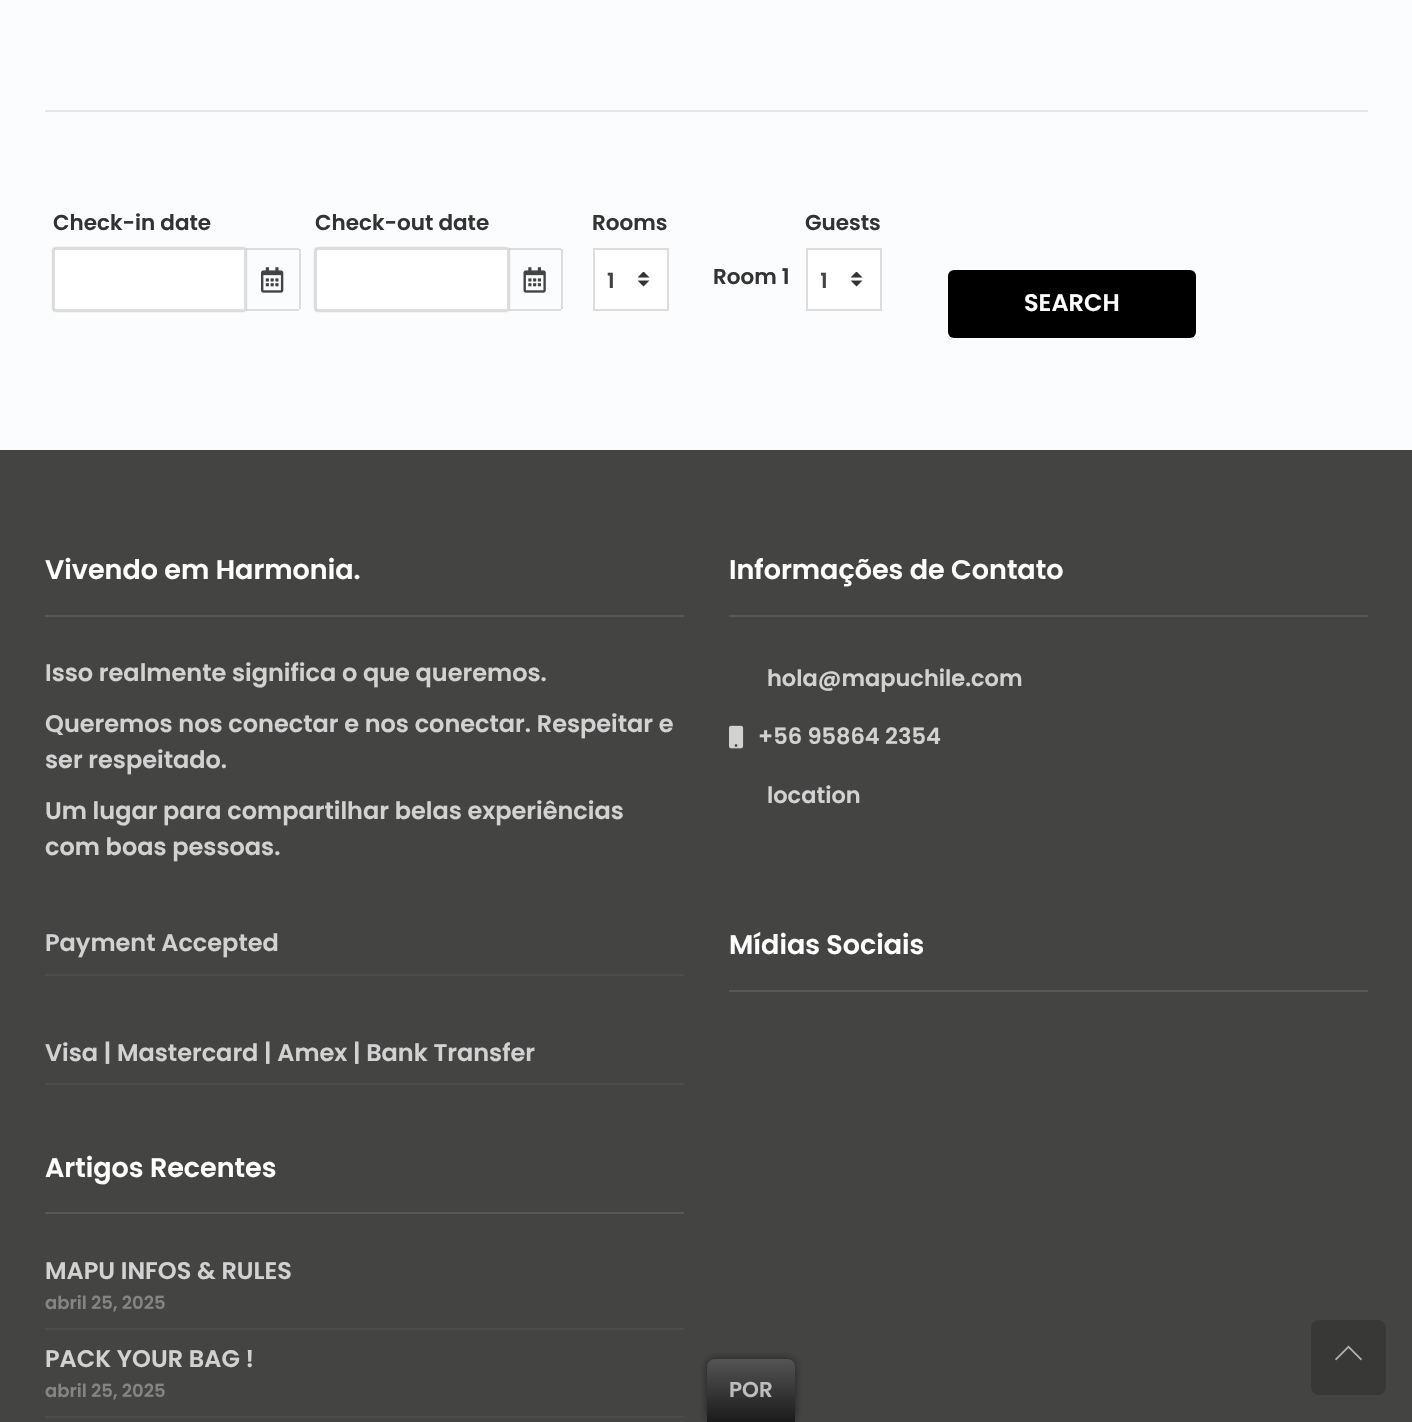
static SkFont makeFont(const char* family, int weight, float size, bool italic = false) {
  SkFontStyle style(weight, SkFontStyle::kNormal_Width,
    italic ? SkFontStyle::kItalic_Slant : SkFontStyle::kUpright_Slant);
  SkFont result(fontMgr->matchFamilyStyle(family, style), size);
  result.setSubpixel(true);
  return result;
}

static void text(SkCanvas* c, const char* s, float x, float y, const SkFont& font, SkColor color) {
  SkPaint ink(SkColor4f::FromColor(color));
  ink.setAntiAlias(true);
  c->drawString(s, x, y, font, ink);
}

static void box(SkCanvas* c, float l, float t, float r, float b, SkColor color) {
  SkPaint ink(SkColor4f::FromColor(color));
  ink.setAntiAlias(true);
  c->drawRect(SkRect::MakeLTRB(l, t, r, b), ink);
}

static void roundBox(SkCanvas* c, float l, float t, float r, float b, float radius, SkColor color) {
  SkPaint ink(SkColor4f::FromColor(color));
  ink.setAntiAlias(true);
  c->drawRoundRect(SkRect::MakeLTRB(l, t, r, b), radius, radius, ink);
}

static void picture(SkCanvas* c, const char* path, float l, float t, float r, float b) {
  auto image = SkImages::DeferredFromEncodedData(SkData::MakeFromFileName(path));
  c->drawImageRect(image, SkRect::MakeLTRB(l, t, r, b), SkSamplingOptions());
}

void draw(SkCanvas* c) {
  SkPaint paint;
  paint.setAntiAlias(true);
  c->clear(0xfffbfcfd);
  box(c, 45, 110, 1368, 112, 0xffe6e6e6);
  SkFont face1 = makeFont("Poppins", 600, 21.5f);
  text(c, "Check-in date", 53, 230, face1, 0xff333333);
  box(c, 246, 248, 299, 250, 0xffdddddd);
  box(c, 246, 309, 299, 311, 0xffdddddd);
  paint.setColor(0xff808080);
  paint.setMaskFilter(SkMaskFilter::MakeBlur(kNormal_SkBlurStyle, 1));
  c->drawRoundRect(SkRect::MakeLTRB(53, 248, 246, 311), 3, 3, paint);
  paint.setMaskFilter(nullptr);
  paint.setColor(0xffffffff);
  c->drawPath(SkPathBuilder().moveTo(56, 249).lineTo(245, 249).lineTo(245, 310).lineTo(56, 310).cubicTo(55, 310, 54, 309, 54, 308).lineTo(54, 251).cubicTo(54, 250, 55, 249, 56, 249).close().detach(), paint);
  paint.setStyle(SkPaint::kStroke_Style);
  paint.setStrokeWidth(2);
  paint.setColor(0xffdddddd);
  c->drawPath(SkPathBuilder().moveTo(56, 249).lineTo(245, 249).lineTo(245, 310).lineTo(56, 310).cubicTo(55, 310, 54, 309, 54, 308).lineTo(54, 251).cubicTo(54, 250, 55, 249, 56, 249).close().detach(), paint);
  box(c, 299, 249, 301, 309, 0xffdddddd);
  picture(c, "img_01.png", 261, 267, 284, 293);
  text(c, "Check-out date", 315, 230, face1, 0xff333333);
  box(c, 509, 248, 561, 250, 0xffdddddd);
  box(c, 509, 309, 561, 311, 0xffdddddd);
  paint.setStyle(SkPaint::kFill_Style);
  paint.setColor(0xff808080);
  paint.setMaskFilter(SkMaskFilter::MakeBlur(kNormal_SkBlurStyle, 1));
  c->drawRoundRect(SkRect::MakeLTRB(315, 248, 509, 311), 3, 3, paint);
  paint.setMaskFilter(nullptr);
  paint.setColor(0xffffffff);
  c->drawPath(SkPathBuilder().moveTo(318, 249).lineTo(508, 249).lineTo(508, 310).lineTo(318, 310).cubicTo(317, 310, 316, 309, 316, 308).lineTo(316, 251).cubicTo(316, 250, 317, 249, 318, 249).close().detach(), paint);
  paint.setStyle(SkPaint::kStroke_Style);
  paint.setColor(0xffdddddd);
  c->drawPath(SkPathBuilder().moveTo(318, 249).lineTo(508, 249).lineTo(508, 310).lineTo(318, 310).cubicTo(317, 310, 316, 309, 316, 308).lineTo(316, 251).cubicTo(316, 250, 317, 249, 318, 249).close().detach(), paint);
  box(c, 561, 249, 563, 309, 0xffdddddd);
  picture(c, "img_02.png", 523, 267, 546, 293);
  text(c, "Rooms", 592, 230, face1, 0xff333333);
  box(c, 595, 250, 667, 309, 0xffffffff);
  picture(c, "img_03.png", 638, 272, 650, 287);
  c->drawRect(SkRect::MakeLTRB(594, 249, 668, 310), paint);
  SkFont face2 = makeFont("Poppins", 600, 21);
  text(c, "1", 607, 288, face2, 0xff444444);
  text(c, "Room 1", 713, 284, face1, 0xff333333);
  text(c, "Guests", 805, 230, face1, 0xff333333);
  box(c, 808, 250, 880, 309, 0xffffffff);
  picture(c, "img_03.png", 851, 272, 863, 287);
  c->drawRect(SkRect::MakeLTRB(807, 249, 881, 310), paint);
  c->save();
  c->clipRect(SkRect::MakeLTRB(821, 266, 836, 296));
  text(c, "1", 820, 288, face2, 0xff444444);
  c->restore();
  roundBox(c, 948, 270, 1196, 338, 6, 0xff000000);
  SkFont face3 = makeFont("Poppins", 600, 24);
  text(c, "SEARCH", 1024, 311, face3, 0xffffffff);
  box(c, 0, 450, 1412, 1422, 0xff444442);
  box(c, 45, 615, 684, 617, 0xff575755);
  SkFont face4 = makeFont("Poppins", 600, 27);
  text(c, "Vivendo em Harmonia.", 45, 579, face4, 0xffffffff);
  text(c, "Isso realmente significa o que queremos.", 45, 681, face3, 0xffd2d2d2);
  text(c, "Queremos nos conectar e nos conectar. Respeitar e", 45, 732, face3, 0xffd2d2d2);
  text(c, "ser respeitado.", 45, 768, face3, 0xffd2d2d2);
  text(c, "Um lugar para compartilhar belas experiências", 45, 819, face3, 0xffd2d2d2);
  text(c, "com boas pessoas.", 45, 855, face3, 0xffd2d2d2);
  box(c, 45, 974, 684, 976, 0xff4d4d4b);
  text(c, "Payment Accepted", 45, 951, face3, 0xffd2d2d2);
  box(c, 45, 1083, 684, 1085, 0xff4d4d4b);
  text(c, "Visa | Mastercard | Amex | Bank Transfer", 45, 1061, face3, 0xffd2d2d2);
  box(c, 729, 615, 1368, 617, 0xff575755);
  text(c, "Informações de Contato", 729, 579, face4, 0xffffffff);
  SkFont face5 = makeFont("Poppins", 600, 22.5f);
  text(c, "hola@mapuchile.com", 767, 686, face5, 0xffd2d2d2);
  picture(c, "img_04.png", 729, 725, 744, 749);
  text(c, "+56 95864 2354", 758, 744, face5, 0xffd2d2d2);
  text(c, "location", 767, 803, face5, 0xffd2d2d2);
  box(c, 729, 990, 1368, 992, 0xff575755);
  text(c, "Mídias Sociais", 729, 954, face4, 0xffffffff);
  box(c, 45, 1212, 684, 1214, 0xff575755);
  text(c, "Artigos Recentes", 45, 1177, face4, 0xffffffff);
  box(c, 45, 1328, 684, 1330, 0xff4d4d4b);
  text(c, "MAPU INFOS & RULES", 45, 1279, face3, 0xffd2d2d2);
  SkFont face6 = makeFont("Poppins", 600, 18);
  text(c, "abril 25, 2025", 45, 1309, face6, 0xff848484);
  box(c, 45, 1416, 684, 1418, 0xff4d4d4b);
  text(c, "PACK YOUR BAG !", 45, 1367, face3, 0xffd2d2d2);
  text(c, "abril 25, 2025", 45, 1397, face6, 0xff848484);
  roundBox(c, 1311, 1320, 1386, 1395, 8, 0xff383836);
  paint.setStyle(SkPaint::kFill_Style);
  paint.setColor(0xffb4b4b3);
  c->drawPath(SkPathBuilder().moveTo(1336, 1360.5f).lineTo(1348.5f, 1348).lineTo(1361, 1360.5f).lineTo(1362, 1359).lineTo(1348.5f, 1345.5f).lineTo(1335, 1359).close().detach(), paint);
  paint.setColor(0xff212121);
  paint.setMaskFilter(SkMaskFilter::MakeBlur(kNormal_SkBlurStyle, 4));
  c->drawRoundRect(SkRect::MakeLTRB(707, 1359, 795, 1422), 8, 8, paint);
  paint.setMaskFilter(nullptr);
  {
    const SkColor colors[] = {0xff1b1b1b, 0xff545454};
    const float stops[] = {0, 1};
    const SkPoint ends[] = {{751, 1422}, {751, 1359}};
    paint.setShader(SkGradientShader::MakeLinear(ends, colors, stops, 2, SkTileMode::kClamp));
    paint.setAlpha(255);
  }
  c->drawPath(SkPathBuilder().moveTo(715, 1359).lineTo(787, 1359).cubicTo(791.5f, 1359, 795, 1362.5f, 795, 1367).lineTo(795, 1422).lineTo(707, 1422).lineTo(707, 1367).cubicTo(707, 1362.5f, 710.5f, 1359, 715, 1359).close().detach(), paint);
  text(c, "POR", 729, 1397, face1, 0xffbdbdbd);
}
